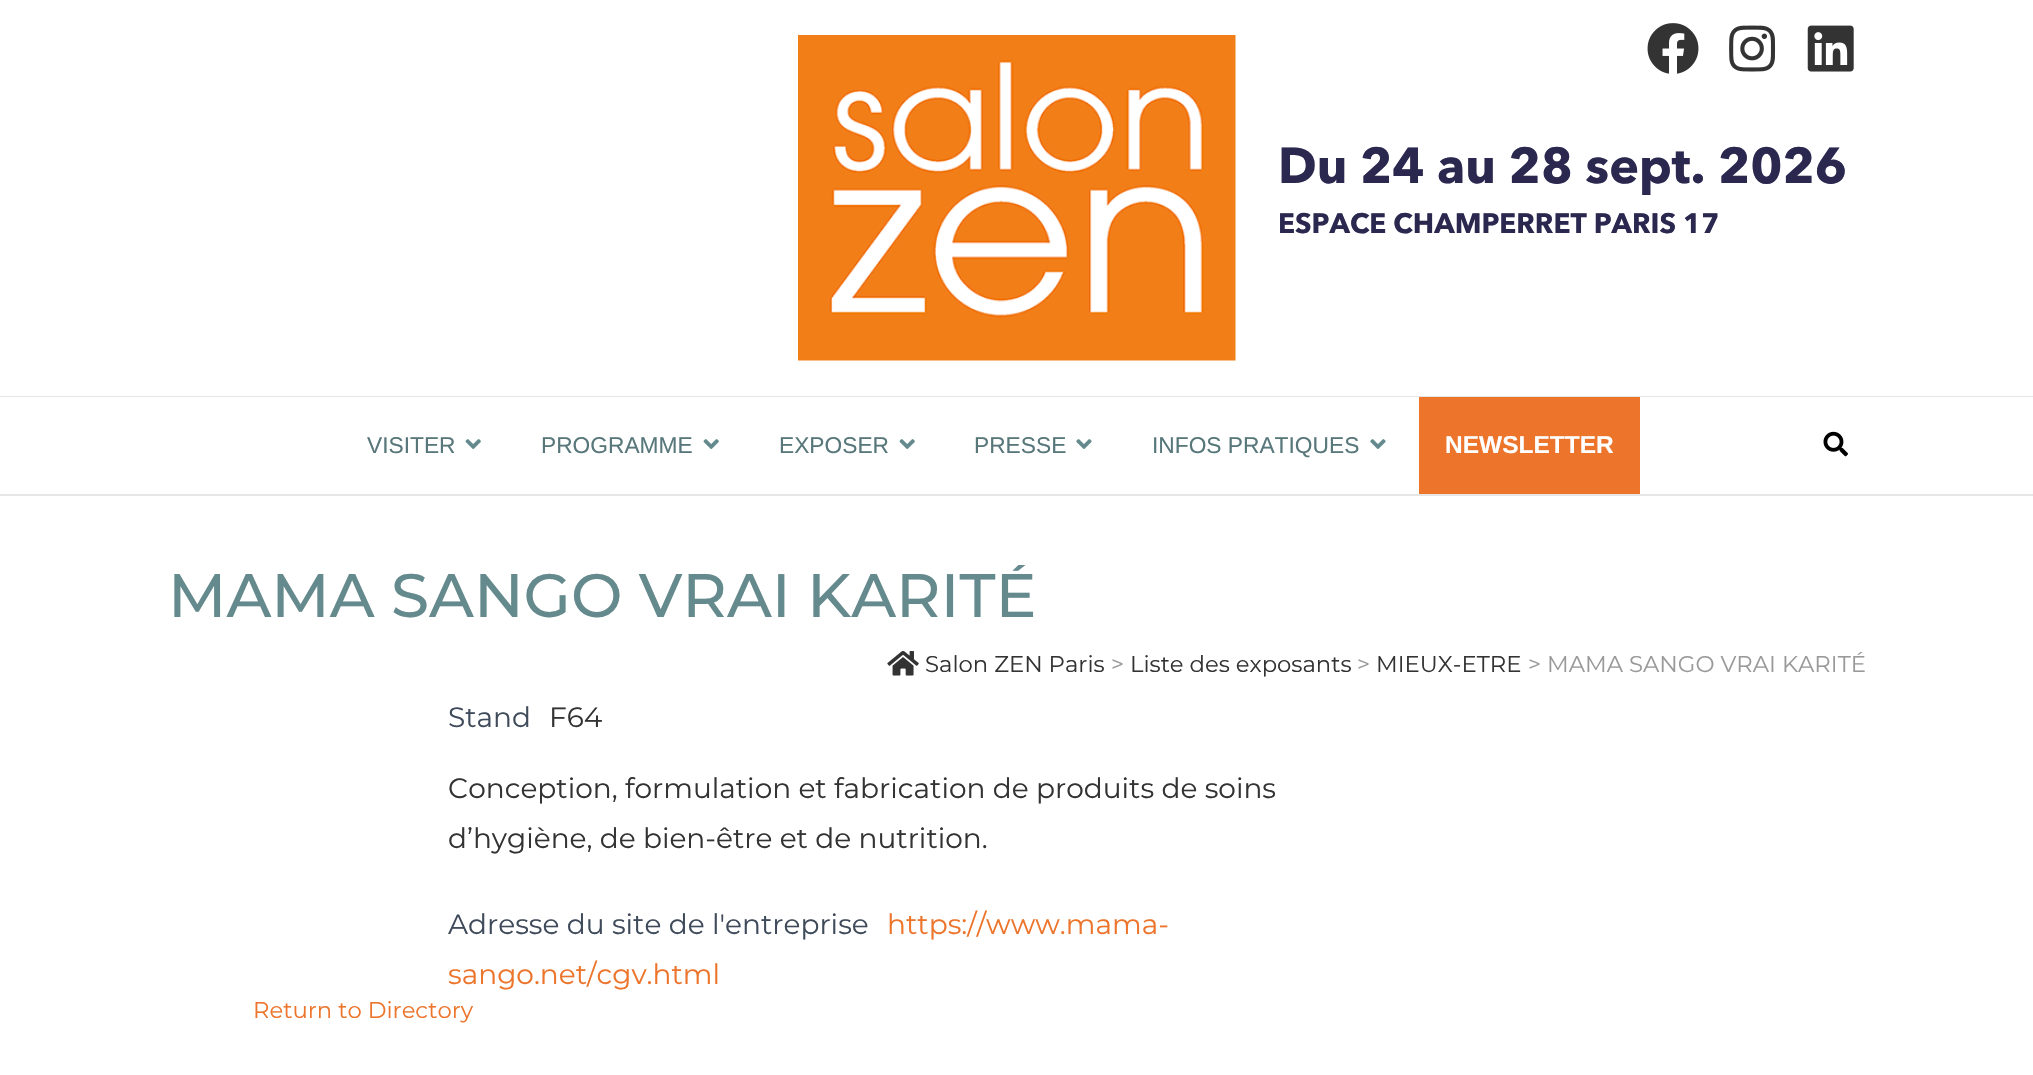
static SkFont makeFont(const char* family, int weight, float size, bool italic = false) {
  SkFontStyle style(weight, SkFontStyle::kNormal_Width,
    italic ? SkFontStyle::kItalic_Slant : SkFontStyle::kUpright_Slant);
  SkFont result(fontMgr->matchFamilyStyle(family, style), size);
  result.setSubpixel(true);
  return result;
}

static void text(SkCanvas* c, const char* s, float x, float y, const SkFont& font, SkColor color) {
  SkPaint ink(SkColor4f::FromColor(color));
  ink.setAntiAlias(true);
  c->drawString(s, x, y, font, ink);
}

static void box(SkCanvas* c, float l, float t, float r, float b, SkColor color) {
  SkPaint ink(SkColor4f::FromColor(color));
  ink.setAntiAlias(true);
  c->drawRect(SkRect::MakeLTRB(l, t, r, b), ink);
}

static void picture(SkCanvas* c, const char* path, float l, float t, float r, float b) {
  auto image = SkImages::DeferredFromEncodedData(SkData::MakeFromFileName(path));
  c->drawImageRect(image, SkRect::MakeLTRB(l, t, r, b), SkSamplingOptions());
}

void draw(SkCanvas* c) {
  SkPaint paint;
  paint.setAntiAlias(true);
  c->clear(0xffffffff);
  box(c, 0, 396, 2033, 397, 0xffe6e6e6);
  picture(c, "img_01.png", 798, 35, 1236, 361);
  picture(c, "img_02.png", 1647, 23, 1699, 74);
  picture(c, "img_03.png", 1729, 25, 1776, 72);
  picture(c, "img_04.png", 1807, 25, 1854, 72);
  SkFont face1 = makeFont("Avenir Next", 700, 50);
  text(c, "Du 24 au 28 sept. 2026", 1278, 183, face1, 0xff2b284f);
  SkFont face2 = makeFont("Avenir Next", 700, 28);
  text(c, "ESPACE CHAMPERRET PARIS 17", 1278, 233, face2, 0xff2b284f);
  box(c, 0, 494, 2033, 496, 0xffe6e6e6);
  SkFont face3 = makeFont("Liberation Sans", 400, 22.75f);
  text(c, "VISITER", 367, 453, face3, 0xff58777a);
  picture(c, "img_05.png", 465, 439, 481, 449);
  text(c, "PROGRAMME", 541, 453, face3, 0xff58777a);
  picture(c, "img_05.png", 703, 439, 719, 449);
  text(c, "EXPOSER", 779, 453, face3, 0xff58777a);
  picture(c, "img_05.png", 899, 439, 915, 449);
  text(c, "PRESSE", 974, 453, face3, 0xff58777a);
  picture(c, "img_06.png", 1076, 439, 1092, 449);
  text(c, "INFOS PRATIQUES", 1152, 453, face3, 0xff58777a);
  picture(c, "img_06.png", 1370, 439, 1386, 449);
  box(c, 1419, 397, 1640, 494, 0xffec742b);
  SkFont face4 = makeFont("Liberation Sans", 700, 24.5f);
  text(c, "NEWSLETTER", 1445, 453, face4, 0xffffffff);
  picture(c, "img_07.png", 1823, 431, 1848, 457);
  c->save();
  c->clipRect(SkRect::MakeLTRB(168, 565, 1866, 686));
  SkFont face5 = makeFont("Montserrat", 500, 61.25f);
  text(c, "MAMA SANGO VRAI KARITÉ", 168, 617, face5, 0xff658a8d);
  c->restore();
  picture(c, "img_08.png", 887, 651, 919, 676);
  SkFont face6 = makeFont("Montserrat", 400, 22.75f);
  text(c, "Salon ZEN Paris", 925, 672, face6, 0xff333333);
  text(c, ">", 1111, 672, face6, 0xff999999);
  text(c, "Liste des exposants", 1130, 672, face6, 0xff333333);
  text(c, ">", 1357, 672, face6, 0xff999999);
  text(c, "MIEUX-ETRE", 1376, 672, face6, 0xff333333);
  text(c, "> MAMA SANGO VRAI KARITÉ", 1528, 672, face6, 0xff999999);
  SkFont face7 = makeFont("Montserrat", 400, 28);
  text(c, "Stand", 448, 727, face7, 0xff3f4b5b);
  text(c, "F64", 549, 727, face7, 0xff333333);
  text(c, "Conception, formulation et fabrication de produits de soins", 448, 798, face7, 0xff333333);
  text(c, "d’hygiène, de bien-être et de nutrition.", 448, 848, face7, 0xff333333);
  text(c, "Adresse du site de l'entreprise", 448, 934, face7, 0xff3f4b5b);
  text(c, "https://www.mama-", 887, 934, face7, 0xffec742b);
  text(c, "sango.net/cgv.html", 448, 984, face7, 0xffec742b);
  text(c, "Return to Directory", 253, 1018, face6, 0xffec742b);
}
